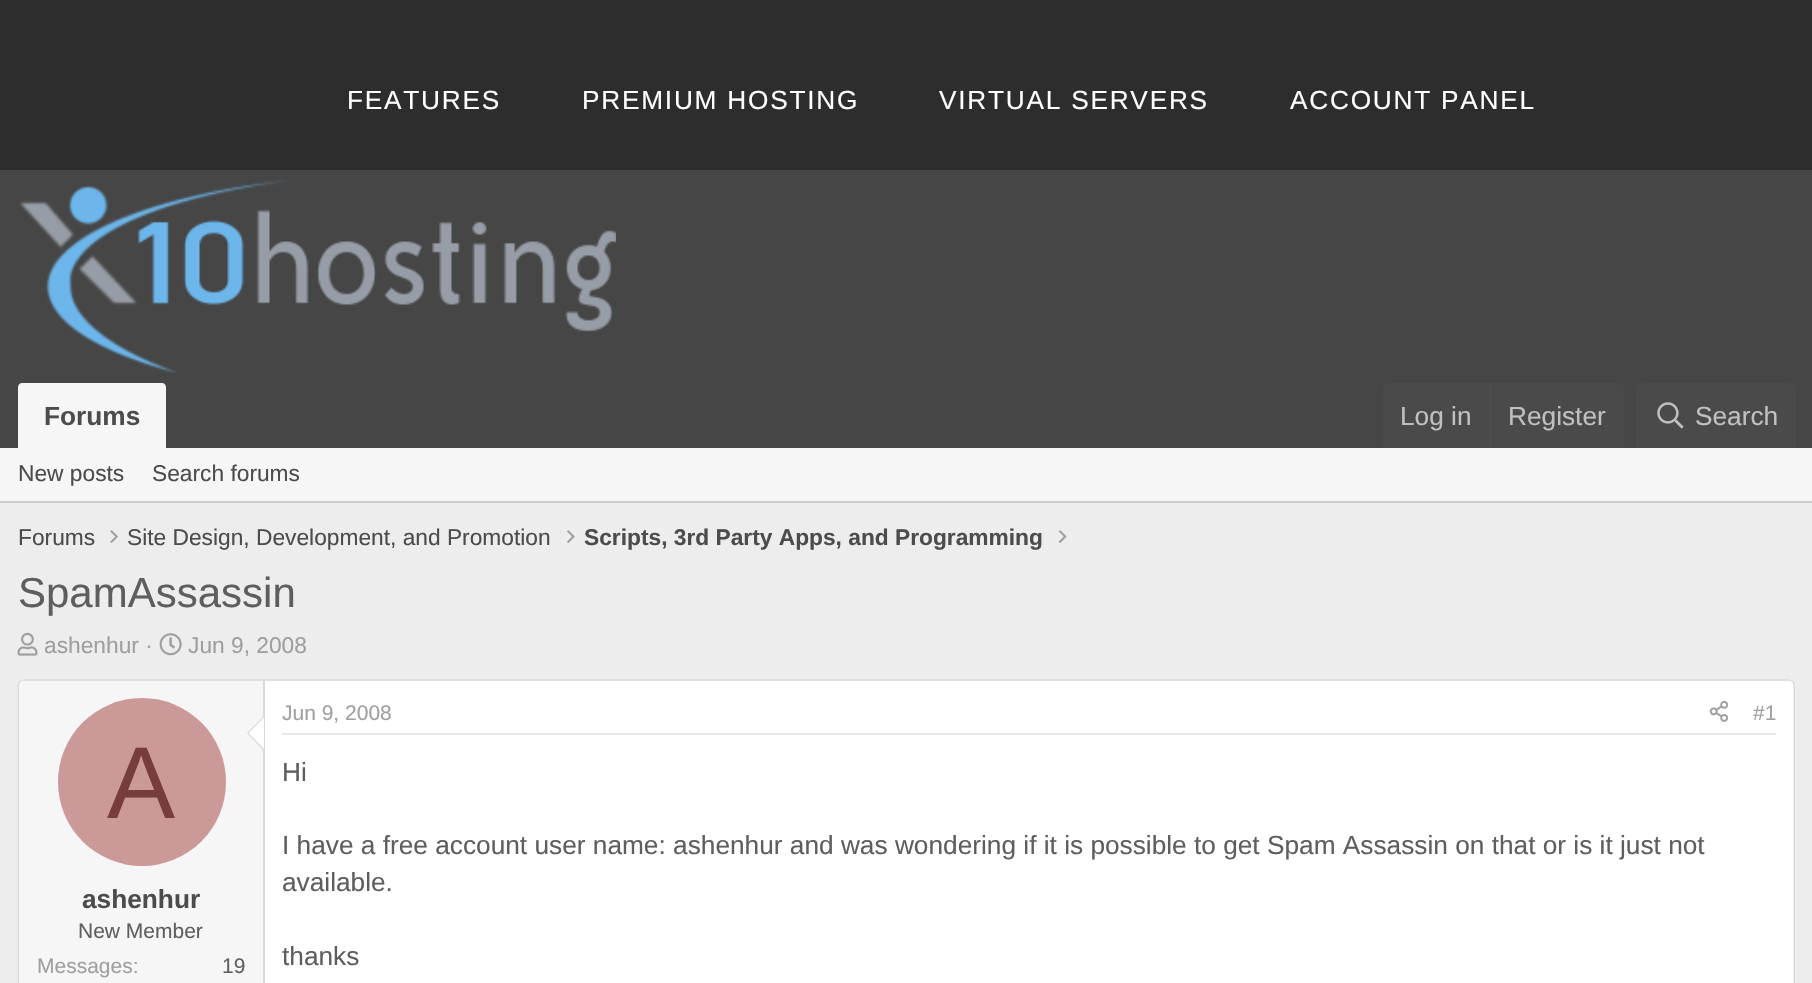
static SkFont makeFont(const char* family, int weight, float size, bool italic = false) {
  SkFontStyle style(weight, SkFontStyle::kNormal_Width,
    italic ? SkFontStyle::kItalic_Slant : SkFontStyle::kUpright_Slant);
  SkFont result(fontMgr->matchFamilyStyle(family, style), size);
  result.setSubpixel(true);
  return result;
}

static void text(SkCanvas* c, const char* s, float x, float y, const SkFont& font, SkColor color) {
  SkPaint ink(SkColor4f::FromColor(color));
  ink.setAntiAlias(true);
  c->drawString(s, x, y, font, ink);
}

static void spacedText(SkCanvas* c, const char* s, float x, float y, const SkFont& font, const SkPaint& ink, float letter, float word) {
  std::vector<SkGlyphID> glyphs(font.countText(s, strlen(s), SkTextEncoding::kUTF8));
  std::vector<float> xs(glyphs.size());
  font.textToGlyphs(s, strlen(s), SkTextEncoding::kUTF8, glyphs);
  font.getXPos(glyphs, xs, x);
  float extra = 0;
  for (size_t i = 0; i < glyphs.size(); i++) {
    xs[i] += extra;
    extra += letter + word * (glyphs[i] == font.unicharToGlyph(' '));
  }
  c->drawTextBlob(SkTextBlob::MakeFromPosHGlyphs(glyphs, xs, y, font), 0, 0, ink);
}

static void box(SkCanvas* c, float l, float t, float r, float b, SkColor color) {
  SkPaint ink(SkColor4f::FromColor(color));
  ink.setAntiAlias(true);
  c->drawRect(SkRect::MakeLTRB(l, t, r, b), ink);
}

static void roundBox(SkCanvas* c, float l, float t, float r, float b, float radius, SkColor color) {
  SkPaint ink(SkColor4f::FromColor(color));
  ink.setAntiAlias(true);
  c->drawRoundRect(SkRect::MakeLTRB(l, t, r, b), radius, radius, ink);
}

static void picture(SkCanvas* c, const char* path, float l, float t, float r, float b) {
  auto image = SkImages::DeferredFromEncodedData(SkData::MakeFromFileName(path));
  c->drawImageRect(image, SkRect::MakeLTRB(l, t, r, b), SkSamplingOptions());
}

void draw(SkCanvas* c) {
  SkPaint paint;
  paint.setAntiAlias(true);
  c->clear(0xffededed);
  box(c, 0, 0, 1812, 170, 0xff2d2d2d);
  SkFont face1 = makeFont("Liberation Sans", 400, 26.25f);
  paint.setColor(0xffffffff);
  spacedText(c, "FEATURES", 347, 109, face1, paint, 1.75f, 0);
  spacedText(c, "PREMIUM HOSTING", 582, 109, face1, paint, 1.75f, 0);
  spacedText(c, "VIRTUAL SERVERS", 939, 109, face1, paint, 1.75f, 0);
  spacedText(c, "ACCOUNT PANEL", 1290, 109, face1, paint, 1.75f, 0);
  box(c, 0, 170, 1812, 448, 0xff464646);
  picture(c, "img_01.png", 19, 180, 616, 373);
  paint.setColor(0xfff6f6f6);
  c->drawPath(SkPathBuilder().moveTo(22, 383).lineTo(162, 383).cubicTo(164, 383, 166, 385, 166, 387).lineTo(166, 448).lineTo(18, 448).lineTo(18, 387).cubicTo(18, 385, 20, 383, 22, 383).close().detach(), paint);
  SkFont face2 = makeFont("Liberation Sans", 700, 26.25f);
  text(c, "Forums", 44, 425, face2, 0xff4c4c4c);
  paint.setColor(0xff4a4a4a);
  c->drawPath(SkPathBuilder().moveTo(1390, 383).lineTo(1617, 383).cubicTo(1621, 383, 1624, 386, 1624, 390).lineTo(1624, 448).lineTo(1383, 448).lineTo(1383, 390).cubicTo(1383, 386, 1386, 383, 1390, 383).close().detach(), paint);
  text(c, "Log in", 1400, 425, face1, 0xffc0c0c0);
  box(c, 1489, 383, 1491, 448, 0xff4d4d4d);
  text(c, "Register", 1508, 425, face1, 0xffc0c0c0);
  c->drawPath(SkPathBuilder().moveTo(1643, 383).lineTo(1789, 383).cubicTo(1793, 383, 1796, 386, 1796, 390).lineTo(1796, 448).lineTo(1636, 448).lineTo(1636, 390).cubicTo(1636, 386, 1639, 383, 1643, 383).close().detach(), paint);
  picture(c, "img_02.png", 1657, 402, 1684, 429);
  text(c, "Search", 1695, 425, face1, 0xffc0c0c0);
  box(c, 0, 448, 1812, 501, 0xfff6f6f6);
  box(c, 0, 501, 1812, 503, 0xffcccccc);
  SkFont face3 = makeFont("Liberation Sans", 400, 22.75f);
  text(c, "New posts", 18, 481, face3, 0xff4c4c4c);
  text(c, "Search forums", 152, 481, face3, 0xff4c4c4c);
  text(c, "Forums", 18, 545, face3, 0xff4c4c4c);
  picture(c, "img_03.png", 110, 530, 118, 543);
  text(c, "Site Design, Development, and Promotion", 127, 545, face3, 0xff4c4c4c);
  picture(c, "img_04.png", 567, 530, 575, 543);
  SkFont face4 = makeFont("Liberation Sans", 700, 22.75f);
  text(c, "Scripts, 3rd Party Apps, and Programming", 584, 545, face4, 0xff4c4c4c);
  picture(c, "img_05.png", 1058, 530, 1067, 543);
  SkFont face5 = makeFont("Liberation Sans", 400, 42);
  text(c, "SpamAssassin", 18, 607, face5, 0xff5e5e5e);
  picture(c, "img_06.png", 17, 632, 38, 656);
  text(c, "ashenhur ·", 44, 653, face3, 0xff9f9f9f);
  picture(c, "img_07.png", 159, 633, 182, 656);
  text(c, "Jun 9, 2008", 188, 653, face3, 0xff9f9f9f);
  roundBox(c, 18, 679, 1796, 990, 7, 0xffffffff);
  paint.setStyle(SkPaint::kStroke_Style);
  paint.setStrokeWidth(1.8f);
  paint.setColor(0xffe0e0e0);
  c->drawPath(SkPathBuilder().moveTo(20, 681.5f).cubicTo(21.5f, 680.5f, 23, 680, 24.5f, 680).lineTo(1788.5f, 680).cubicTo(1790, 680, 1791.5f, 680.5f, 1793, 681.5f).detach(), paint);
  paint.setColor(0xffd9d9d9);
  c->drawPath(SkPathBuilder().moveTo(1793, 681.5f).cubicTo(1794, 683, 1794.5f, 684.5f, 1794.5f, 686).lineTo(1794.5f, 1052).cubicTo(1794.5f, 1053.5f, 1794, 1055, 1793, 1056).detach(), paint);
  c->drawPath(SkPathBuilder().moveTo(20, 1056).cubicTo(19, 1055, 18.5f, 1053.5f, 18.5f, 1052).lineTo(18.5f, 686).cubicTo(18.5f, 684.5f, 19, 683, 20, 681.5f).detach(), paint);
  paint.setStyle(SkPaint::kFill_Style);
  paint.setColor(0xfff6f6f6);
  c->drawPath(SkPathBuilder().moveTo(24, 681).lineTo(264, 681).lineTo(264, 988).lineTo(24, 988).cubicTo(21, 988, 19, 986, 19, 983).lineTo(19, 686).cubicTo(19, 683, 21, 681, 24, 681).close().detach(), paint);
  box(c, 263, 681, 265, 983, 0xffd9d9d9);
  paint.setColor(0xffd9d9d9);
  c->drawPath(SkPathBuilder().moveTo(264, 716).lineTo(264, 751).lineTo(247, 733).close().detach(), paint);
  paint.setColor(0xffffffff);
  c->drawPath(SkPathBuilder().moveTo(264, 717.5f).lineTo(264, 749).lineTo(248.5f, 733).close().detach(), paint);
  paint.setColor(0xffcc9999);
  c->drawCircle(142, 782, 84, paint);
  SkFont face6 = makeFont("Liberation Sans", 400, 102);
  text(c, "A", 107, 818, face6, 0xff773c3c);
  text(c, "ashenhur", 82, 908, face2, 0xff4c4c4c);
  SkFont face7 = makeFont("Liberation Sans", 400, 21);
  text(c, "New Member", 78, 938, face7, 0xff5e5e5e);
  text(c, "Messages:", 37, 973, face7, 0xff9f9f9f);
  text(c, "19", 222, 973, face7, 0xff5e5e5e);
  box(c, 282, 733, 1776, 735, 0xffe8e8e8);
  text(c, "Jun 9, 2008", 282, 720, face7, 0xff9f9f9f);
  picture(c, "img_08.png", 1709, 700, 1729, 722);
  text(c, "#1", 1753, 720, face7, 0xff9f9f9f);
  text(c, "Hi", 282, 781, face1, 0xff5e5e5e);
  text(c, "I have a free account user name: ashenhur and was wondering if it is possible to get Spam Assassin on that or is it just not", 282, 854, face1, 0xff5e5e5e);
  text(c, "available.", 282, 891, face1, 0xff5e5e5e);
  text(c, "thanks", 282, 965, face1, 0xff5e5e5e);
}
